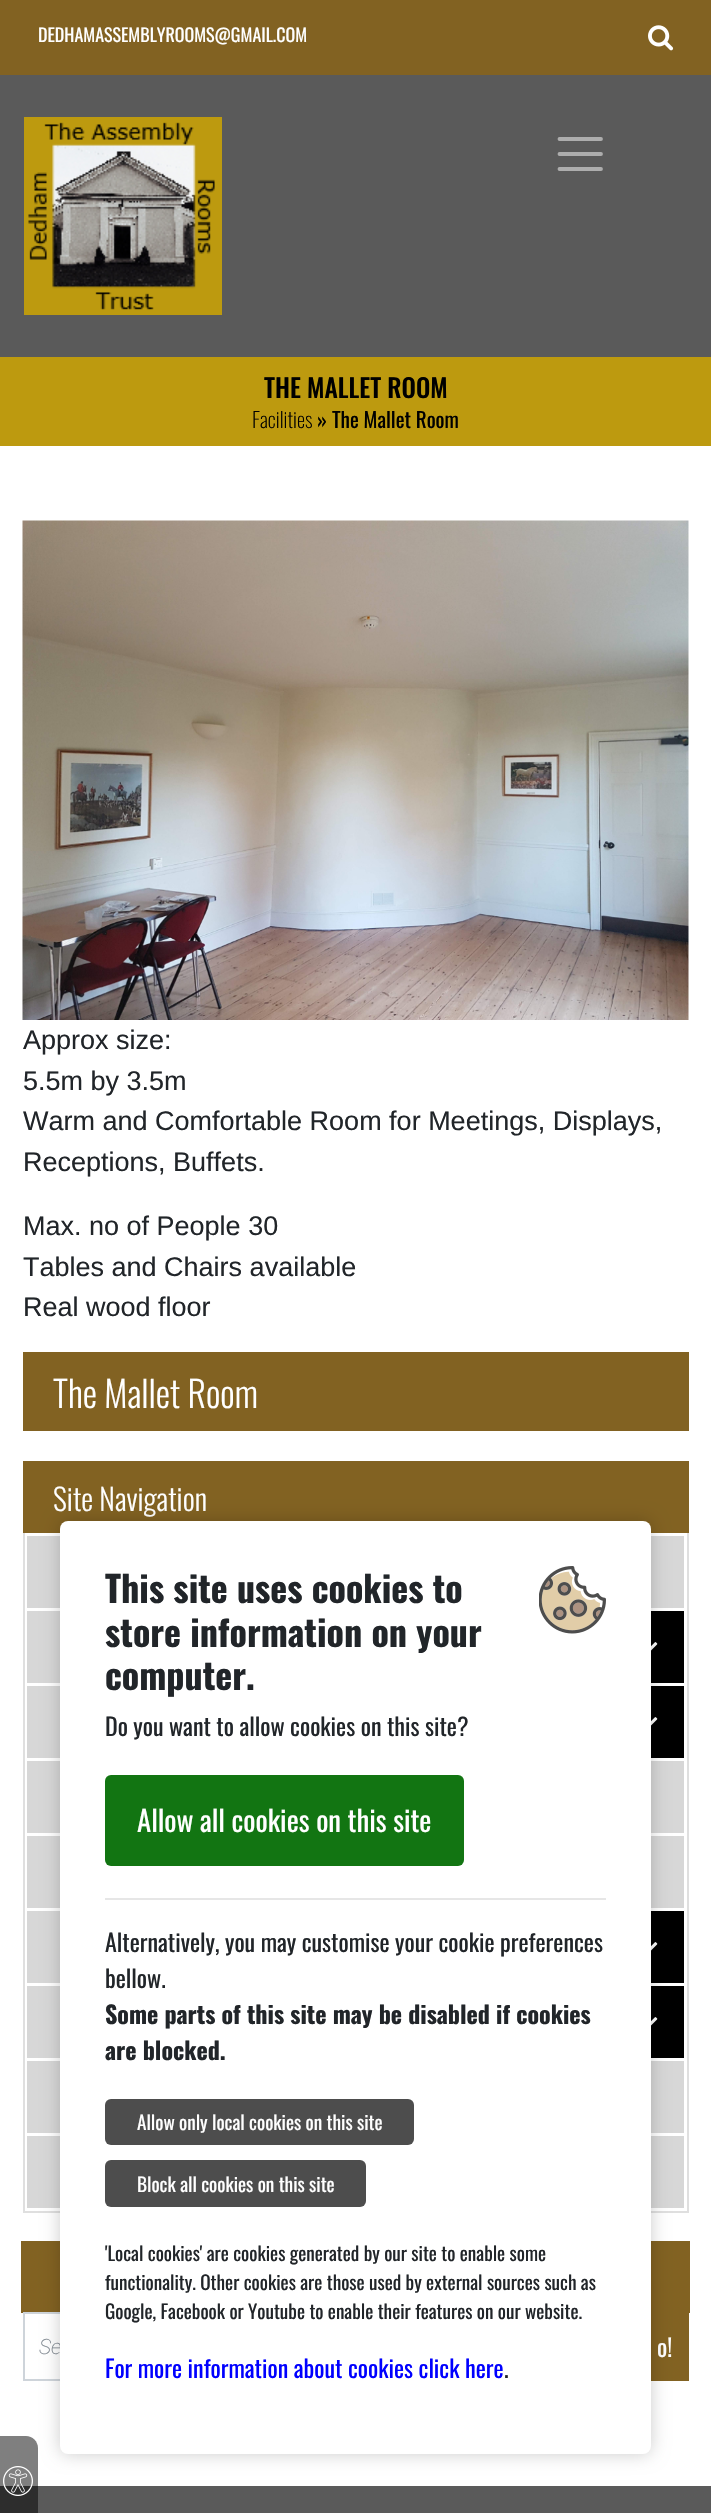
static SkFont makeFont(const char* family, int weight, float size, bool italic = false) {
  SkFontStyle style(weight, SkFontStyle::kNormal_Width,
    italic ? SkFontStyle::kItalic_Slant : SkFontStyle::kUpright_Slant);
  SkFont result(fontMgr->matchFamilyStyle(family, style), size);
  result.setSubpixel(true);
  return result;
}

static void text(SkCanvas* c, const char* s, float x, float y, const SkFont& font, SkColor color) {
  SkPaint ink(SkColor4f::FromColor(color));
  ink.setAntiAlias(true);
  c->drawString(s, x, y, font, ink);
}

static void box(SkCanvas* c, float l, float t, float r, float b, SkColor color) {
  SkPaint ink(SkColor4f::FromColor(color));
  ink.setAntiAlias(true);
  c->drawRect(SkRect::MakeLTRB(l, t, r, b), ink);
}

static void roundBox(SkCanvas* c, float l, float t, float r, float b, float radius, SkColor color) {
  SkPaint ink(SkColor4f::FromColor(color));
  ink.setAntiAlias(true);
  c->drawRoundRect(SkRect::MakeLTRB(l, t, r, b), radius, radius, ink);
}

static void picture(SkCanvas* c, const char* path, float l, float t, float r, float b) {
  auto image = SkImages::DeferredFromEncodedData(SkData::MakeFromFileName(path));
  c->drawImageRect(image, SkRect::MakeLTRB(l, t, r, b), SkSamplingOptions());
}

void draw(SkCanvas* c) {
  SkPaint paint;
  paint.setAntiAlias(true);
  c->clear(0xffffffff);
  box(c, 0, 0, 711, 75, 0xff826222);
  SkFont face1 = makeFont("Oswald", 400, 18);
  text(c, "DEDHAMASSEMBLYROOMS@GMAIL.COM", 38, 42, face1, 0xffffffff);
  picture(c, "img_01.png", 648, 25, 674, 51);
  box(c, 0, 75, 711, 357, 0xff5a5a5a);
  picture(c, "img_02.png", 24, 117, 222, 315);
  paint.setStyle(SkPaint::kStroke_Style);
  paint.setStrokeWidth(3.8f);
  paint.setStrokeCap(SkPaint::kRound_Cap);
  paint.setColor(0xffadadad);
  c->drawPath(SkPathBuilder().moveTo(559.5f, 139).lineTo(601, 139).moveTo(559.5f, 154).lineTo(601, 154).moveTo(559.5f, 169).lineTo(601, 169).detach(), paint);
  box(c, 0, 357, 711, 446, 0xffbd9a0f);
  SkFont face2 = makeFont("Oswald", 500, 25.5f);
  text(c, "THE MALLET ROOM", 264, 398, face2, 0xff000000);
  SkFont face3 = makeFont("Oswald", 200, 21);
  text(c, "Facilities", 252, 428, face3, 0xff000000);
  SkFont face4 = makeFont("Oswald", 400, 21);
  text(c, "» The Mallet Room", 317, 428, face4, 0xff000000);
  picture(c, "img_03.png", 22, 520, 689, 1020);
  SkFont face5 = makeFont("Liberation Sans", 400, 27);
  text(c, "Approx size:", 23, 1049, face5, 0xff212529);
  text(c, "5.5m by 3.5m", 23, 1090, face5, 0xff212529);
  text(c, "Warm and Comfortable Room for Meetings, Displays,", 23, 1130, face5, 0xff212529);
  text(c, "Receptions, Buffets.", 23, 1171, face5, 0xff212529);
  text(c, "Max. no of People 30", 23, 1235, face5, 0xff212529);
  text(c, "Tables and Chairs available", 23, 1276, face5, 0xff212529);
  text(c, "Real wood floor", 23, 1316, face5, 0xff212529);
  box(c, 23, 1352, 689, 1431, 0xff826222);
  SkFont face6 = makeFont("Oswald", 300, 36);
  text(c, "The Mallet Room", 53, 1408, face6, 0xffffffff);
  paint.setStrokeWidth(2);
  paint.setStrokeCap(SkPaint::kButt_Cap);
  paint.setColor(0xffdfdfdf);
  c->drawRect(SkRect::MakeLTRB(24, 1462, 688, 2212), paint);
  box(c, 23, 1461, 689, 1533, 0xff826222);
  SkFont face7 = makeFont("Oswald", 300, 30);
  text(c, "Site Navigation", 53, 1511, face7, 0xffffffff);
  box(c, 27, 1536, 684, 1608, 0xffd7d7d7);
  box(c, 27, 1611, 60, 1683, 0xffd7d7d7);
  box(c, 651, 1611, 684, 1683, 0xff000000);
  picture(c, "img_04.png", 651, 1642, 658, 1651);
  box(c, 27, 1686, 60, 1758, 0xffd7d7d7);
  box(c, 651, 1686, 684, 1758, 0xff000000);
  picture(c, "img_04.png", 651, 1717, 658, 1726);
  box(c, 27, 1761, 684, 1833, 0xffd7d7d7);
  box(c, 27, 1836, 684, 1908, 0xffd7d7d7);
  box(c, 27, 1911, 60, 1983, 0xffd7d7d7);
  box(c, 651, 1911, 684, 1983, 0xff000000);
  picture(c, "img_04.png", 651, 1942, 658, 1951);
  box(c, 27, 1986, 60, 2058, 0xffd7d7d7);
  box(c, 651, 1986, 684, 2058, 0xff000000);
  picture(c, "img_04.png", 651, 2017, 658, 2026);
  box(c, 27, 2061, 684, 2133, 0xffd7d7d7);
  box(c, 27, 2136, 684, 2208, 0xffd7d7d7);
  box(c, 21, 2241, 690, 2313, 0xff826222);
  paint.setColor(0xffced4da);
  c->drawRect(SkRect::MakeLTRB(24, 2313, 628, 2380), paint);
  SkFont face8 = makeFont("Roboto", 200, 21, true);
  text(c, "Se", 39, 2354, face8, 0xff868e96);
  box(c, 651, 2313, 689, 2381, 0xff826222);
  SkFont face9 = makeFont("Oswald", 400, 24);
  text(c, "o!", 657, 2357, face9, 0xffffffff);
  box(c, 0, 2486, 711, 2513, 0xff5a5a5a);
  paint.setStyle(SkPaint::kFill_Style);
  paint.setColor(0x80000000);
  c->drawPath(SkPathBuilder().moveTo(0, 2436).lineTo(26, 2436).cubicTo(32.5f, 2436, 38, 2441.5f, 38, 2448).lineTo(38, 2513).cubicTo(38, 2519.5f, 32.5f, 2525, 26, 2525).lineTo(0, 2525).close().detach(), paint);
  picture(c, "img_06.png", 3, 2466, 33, 2496);
  paint.setColor(0x33000000);
  paint.setMaskFilter(SkMaskFilter::MakeBlur(kNormal_SkBlurStyle, 9));
  c->drawRoundRect(SkRect::MakeLTRB(60, 1521, 651, 2454), 8, 8, paint);
  paint.setMaskFilter(nullptr);
  roundBox(c, 60, 1521, 651, 2454, 8, 0xffffffff);
  SkFont face10 = makeFont("Oswald", 700, 36);
  text(c, "This site uses cookies to", 105, 1603, face10, 0xff212529);
  text(c, "store information on your", 105, 1647, face10, 0xff212529);
  text(c, "computer.", 105, 1690, face10, 0xff212529);
  picture(c, "img_05.png", 539, 1566, 606, 1634);
  text(c, "Do you want to allow cookies on this site?", 105, 1736, face9, 0xff212529);
  roundBox(c, 105, 1775, 464, 1866, 6, 0xff127512);
  SkFont face11 = makeFont("Oswald", 400, 28.75f);
  text(c, "Allow all cookies on this site", 137, 1832, face11, 0xffffffff);
  box(c, 105, 1898, 606, 1900, 0xffe6e6e6);
  text(c, "Alternatively, you may customise your cookie preferences", 105, 1952, face9, 0xff212529);
  text(c, "bellow.", 105, 1988, face9, 0xff212529);
  SkFont face12 = makeFont("Oswald", 700, 24);
  text(c, "Some parts of this site may be disabled if cookies", 105, 2024, face12, 0xff212529);
  text(c, "are blocked.", 105, 2060, face12, 0xff212529);
  roundBox(c, 105, 2099, 414, 2145, 6, 0xff4d4d4d);
  SkFont face13 = makeFont("Oswald", 400, 19.2f);
  text(c, "Allow only local cookies on this site", 137, 2130, face13, 0xffffffff);
  roundBox(c, 105, 2160, 366, 2207, 6, 0xff4d4d4d);
  text(c, "Block all cookies on this site", 137, 2192, face13, 0xffffffff);
  text(c, "'Local cookies' are cookies generated by our site to enable some", 105, 2261, face13, 0xff212529);
  text(c, "functionality. Other cookies are those used by external sources such as", 105, 2290, face13, 0xff212529);
  text(c, "Google, Facebook or Youtube to enable their features on our website.", 105, 2319, face13, 0xff212529);
  text(c, "For more information about cookies click here", 105, 2378, face9, 0xff0000ff);
  text(c, ".", 504, 2378, face9, 0xff212529);
}
